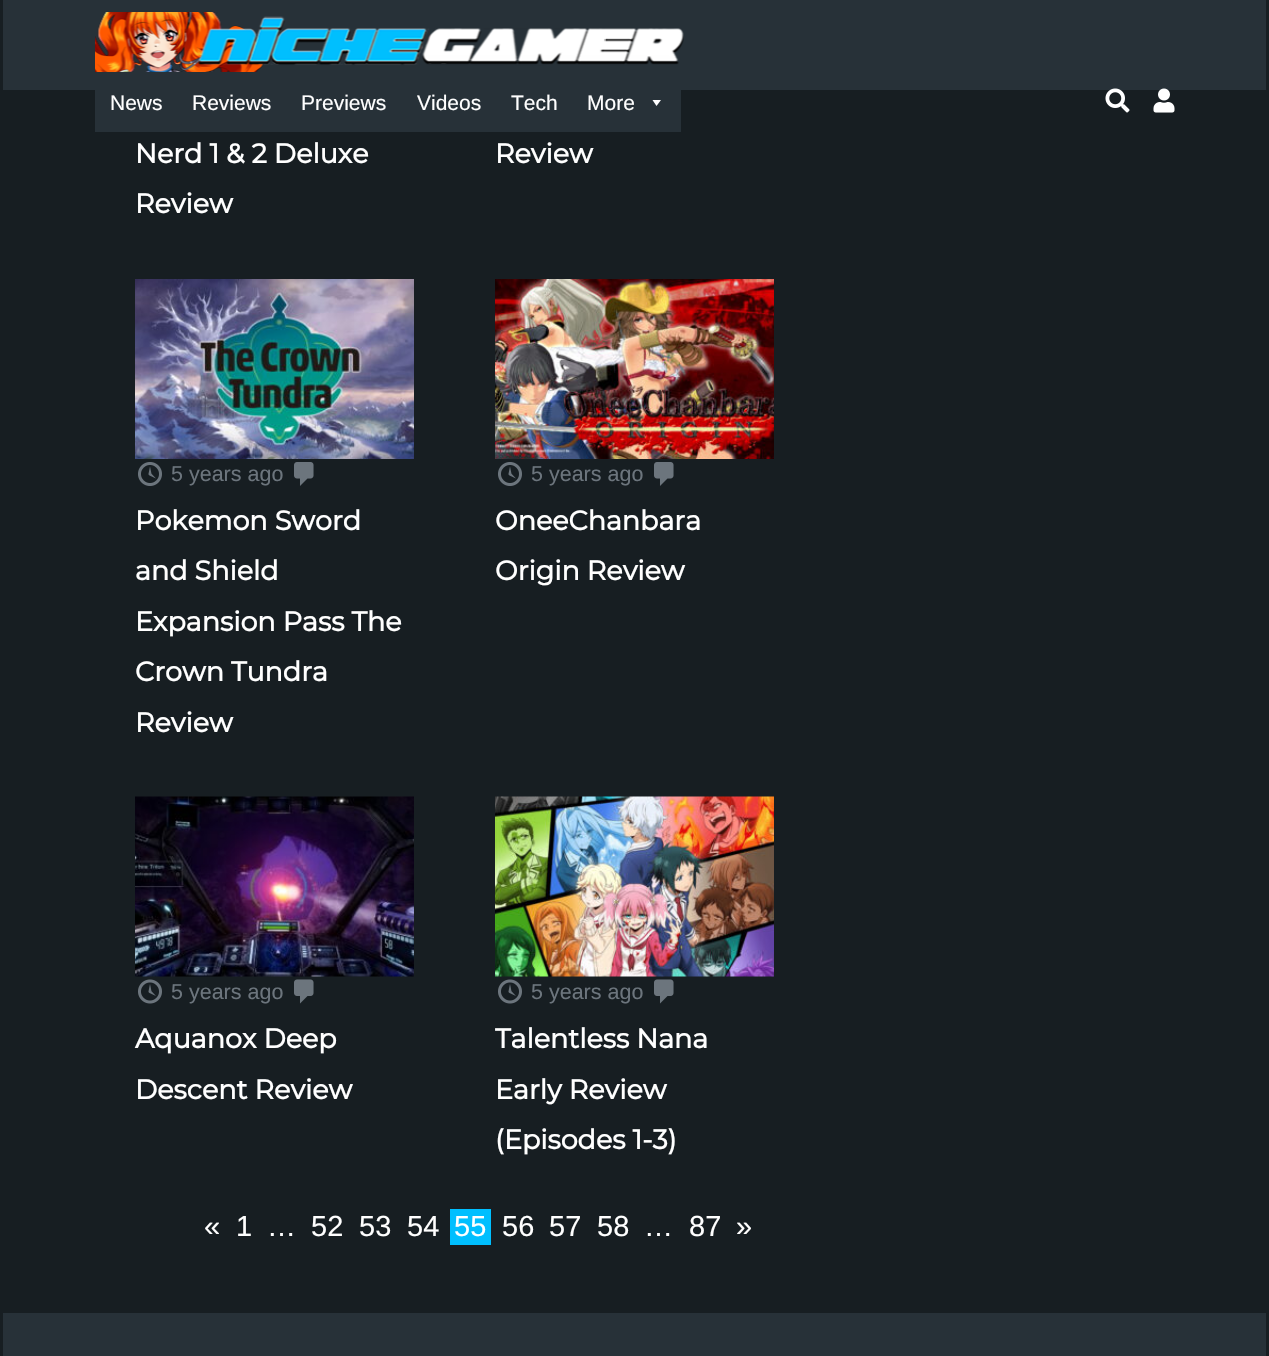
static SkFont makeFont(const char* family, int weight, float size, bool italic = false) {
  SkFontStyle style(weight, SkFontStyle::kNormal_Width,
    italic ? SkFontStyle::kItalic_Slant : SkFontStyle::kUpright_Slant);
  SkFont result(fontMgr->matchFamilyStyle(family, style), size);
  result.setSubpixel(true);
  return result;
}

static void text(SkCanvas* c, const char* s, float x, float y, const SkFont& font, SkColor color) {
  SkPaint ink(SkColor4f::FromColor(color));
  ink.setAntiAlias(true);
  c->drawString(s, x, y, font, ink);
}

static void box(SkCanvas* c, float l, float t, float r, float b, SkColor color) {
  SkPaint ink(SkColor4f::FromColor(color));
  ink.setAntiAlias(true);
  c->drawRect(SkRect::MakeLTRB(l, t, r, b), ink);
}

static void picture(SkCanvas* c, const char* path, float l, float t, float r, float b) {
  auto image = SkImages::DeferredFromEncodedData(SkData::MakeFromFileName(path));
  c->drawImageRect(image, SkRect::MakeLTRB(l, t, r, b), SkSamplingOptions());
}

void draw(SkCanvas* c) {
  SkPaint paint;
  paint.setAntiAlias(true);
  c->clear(0xff171e22);
  box(c, 3, 0, 1266, 90, 0xff273138);
  picture(c, "img_01.png", 95, 12, 684, 72);
  box(c, 95, 90, 681, 132, 0xff273138);
  SkFont face1 = makeFont("Liberation Sans", 400, 21);
  text(c, "News", 110, 110, face1, 0xffffffff);
  text(c, "Reviews", 192, 110, face1, 0xffffffff);
  text(c, "Previews", 301, 110, face1, 0xffffffff);
  text(c, "Videos", 417, 110, face1, 0xffffffff);
  text(c, "Tech", 511, 110, face1, 0xffffffff);
  text(c, "More", 587, 110, face1, 0xffffffff);
  paint.setColor(0xffffffff);
  c->drawPath(SkPathBuilder().moveTo(661, 100).lineTo(656.5f, 106).lineTo(652.5f, 100).close().detach(), paint);
  picture(c, "img_02.png", 1105, 88, 1130, 113);
  picture(c, "img_03.png", 1153, 88, 1175, 113);
  SkFont face2 = makeFont("Montserrat", 700, 27);
  text(c, "Nerd 1 & 2 Deluxe", 135, 163, face2, 0xffffffff);
  text(c, "Review", 135, 213, face2, 0xffffffff);
  text(c, "Review", 495, 163, face2, 0xffffffff);
  picture(c, "img_04.png", 135, 279, 414, 459);
  picture(c, "img_05.png", 138, 462, 162, 486);
  SkFont face3 = makeFont("Liberation Sans", 400, 21.5f);
  text(c, "5 years ago", 171, 481, face3, 0xff6c757d);
  picture(c, "img_06.png", 294, 462, 314, 486);
  text(c, "Pokemon Sword", 135, 530, face2, 0xffffffff);
  text(c, "and Shield", 135, 580, face2, 0xffffffff);
  text(c, "Expansion Pass The", 135, 631, face2, 0xffffffff);
  text(c, "Crown Tundra", 135, 681, face2, 0xffffffff);
  text(c, "Review", 135, 732, face2, 0xffffffff);
  picture(c, "img_07.png", 495, 279, 774, 459);
  picture(c, "img_05.png", 498, 462, 522, 486);
  text(c, "5 years ago", 531, 481, face3, 0xff6c757d);
  picture(c, "img_06.png", 654, 462, 674, 486);
  text(c, "OneeChanbara", 495, 530, face2, 0xffffffff);
  text(c, "Origin Review", 495, 580, face2, 0xffffffff);
  picture(c, "img_08.png", 135, 796, 414, 977);
  picture(c, "img_09.png", 138, 979, 162, 1004);
  text(c, "5 years ago", 171, 999, face3, 0xff6c757d);
  picture(c, "img_10.png", 294, 979, 314, 1004);
  text(c, "Aquanox Deep", 135, 1048, face2, 0xffffffff);
  text(c, "Descent Review", 135, 1099, face2, 0xffffffff);
  picture(c, "img_11.png", 495, 796, 774, 977);
  picture(c, "img_09.png", 498, 979, 522, 1004);
  text(c, "5 years ago", 531, 999, face3, 0xff6c757d);
  picture(c, "img_10.png", 654, 979, 674, 1004);
  text(c, "Talentless Nana", 495, 1048, face2, 0xffffffff);
  text(c, "Early Review", 495, 1099, face2, 0xffffffff);
  text(c, "(Episodes 1-3)", 495, 1149, face2, 0xffffffff);
  SkFont face4 = makeFont("Liberation Sans", 400, 29);
  text(c, "«", 204, 1236, face4, 0xffffffff);
  text(c, "1", 236, 1236, face4, 0xffffffff);
  text(c, "…", 267, 1236, face4, 0xffffffff);
  text(c, "52", 311, 1236, face4, 0xffffffff);
  text(c, "53", 359, 1236, face4, 0xffffffff);
  text(c, "54", 407, 1236, face4, 0xffffffff);
  box(c, 450, 1209, 491, 1245, 0xff00bfff);
  text(c, "55", 454, 1236, face4, 0xffffffff);
  text(c, "56", 502, 1236, face4, 0xffffffff);
  text(c, "57", 549, 1236, face4, 0xffffffff);
  text(c, "58", 597, 1236, face4, 0xffffffff);
  text(c, "…", 644, 1236, face4, 0xffffffff);
  text(c, "87", 689, 1236, face4, 0xffffffff);
  text(c, "»", 736, 1236, face4, 0xffffffff);
  box(c, 3, 1313, 1266, 1356, 0xff273138);
}
